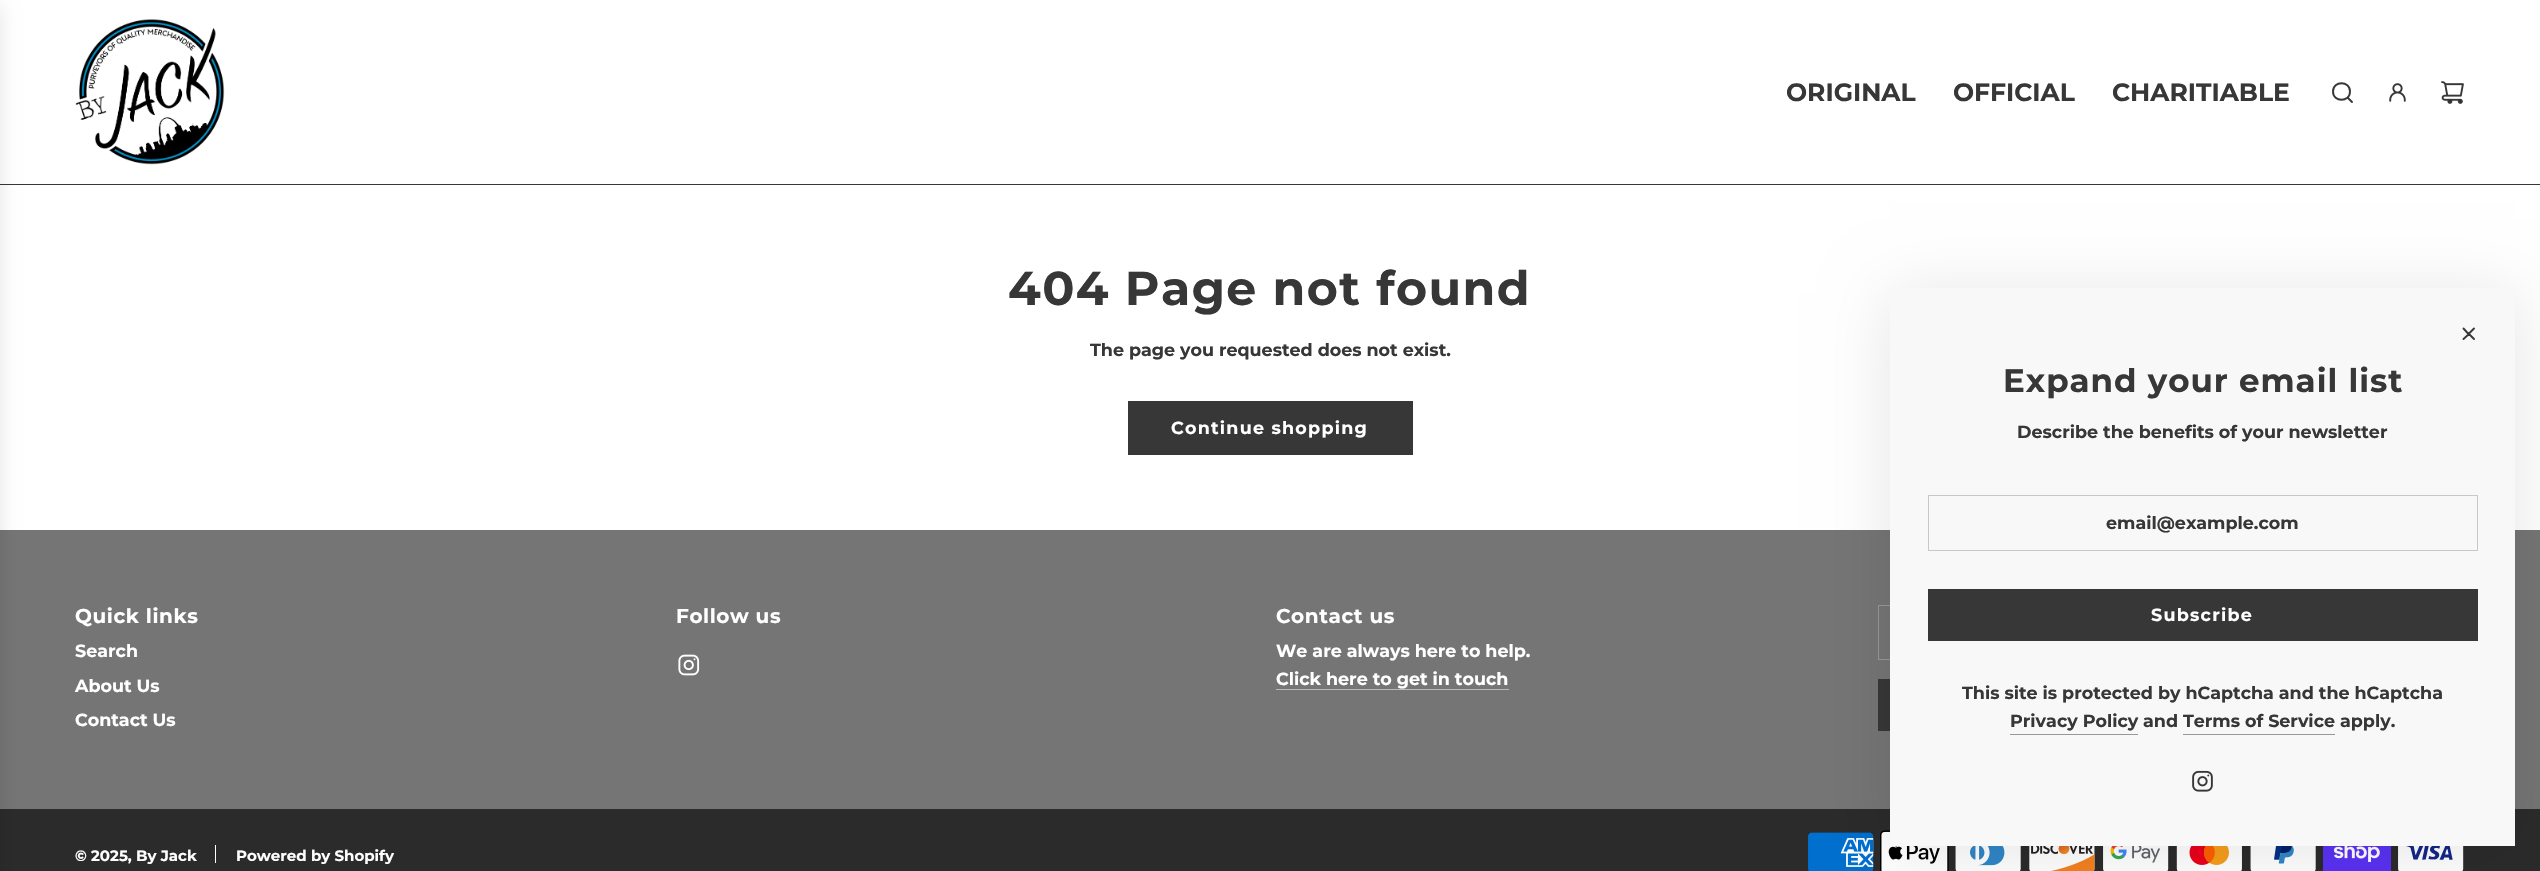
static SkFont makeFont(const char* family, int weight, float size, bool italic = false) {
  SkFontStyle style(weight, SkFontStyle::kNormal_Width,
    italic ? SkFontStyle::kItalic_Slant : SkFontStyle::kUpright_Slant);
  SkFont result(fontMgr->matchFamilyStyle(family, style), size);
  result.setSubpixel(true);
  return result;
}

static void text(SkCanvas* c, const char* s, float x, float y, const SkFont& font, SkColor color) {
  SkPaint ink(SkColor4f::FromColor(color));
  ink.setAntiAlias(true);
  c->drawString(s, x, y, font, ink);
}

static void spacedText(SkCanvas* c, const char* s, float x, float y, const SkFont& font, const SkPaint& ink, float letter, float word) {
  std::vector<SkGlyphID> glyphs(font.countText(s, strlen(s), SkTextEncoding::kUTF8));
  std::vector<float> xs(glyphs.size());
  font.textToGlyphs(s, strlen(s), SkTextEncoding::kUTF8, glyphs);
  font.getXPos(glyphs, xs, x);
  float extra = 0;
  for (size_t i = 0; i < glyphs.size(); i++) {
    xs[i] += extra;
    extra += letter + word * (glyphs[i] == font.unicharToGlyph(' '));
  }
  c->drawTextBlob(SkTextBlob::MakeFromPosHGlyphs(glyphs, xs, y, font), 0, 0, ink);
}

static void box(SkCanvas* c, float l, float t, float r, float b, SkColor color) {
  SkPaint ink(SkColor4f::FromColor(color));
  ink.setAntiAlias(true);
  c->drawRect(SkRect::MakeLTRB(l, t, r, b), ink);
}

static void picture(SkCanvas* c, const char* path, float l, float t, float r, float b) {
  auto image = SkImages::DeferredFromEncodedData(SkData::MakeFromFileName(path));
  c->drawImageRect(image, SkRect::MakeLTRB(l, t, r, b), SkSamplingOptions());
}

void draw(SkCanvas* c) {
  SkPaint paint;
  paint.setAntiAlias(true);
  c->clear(0xffffffff);
  box(c, 0, 184, 2540, 185, 0xff373737);
  box(c, 0, 530, 2540, 809, 0xff757575);
  box(c, 0, 809, 2540, 871, 0xff2b2b2b);
  paint.setColor(0x1a000000);
  paint.setMaskFilter(SkMaskFilter::MakeBlur(kNormal_SkBlurStyle, 9.5f));
  c->drawRect(SkRect::MakeLTRB(-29, 6, 0, 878), paint);
  paint.setMaskFilter(nullptr);
  picture(c, "img_01.png", 75, 19, 225, 165);
  SkFont face1 = makeFont("Montserrat", 700, 25);
  text(c, "ORIGINAL", 1786, 101, face1, 0xff373737);
  text(c, "OFFICIAL", 1953, 101, face1, 0xff373737);
  text(c, "CHARITIABLE", 2112, 101, face1, 0xff373737);
  paint.setStyle(SkPaint::kStroke_Style);
  paint.setStrokeWidth(1.9f);
  paint.setStrokeCap(SkPaint::kRound_Cap);
  paint.setStrokeJoin(SkPaint::kRound_Join);
  paint.setColor(0xff373737);
  c->drawPath(SkPathBuilder().moveTo(2347.5f, 97.5f).lineTo(2352, 102).moveTo(2333, 91.5f).cubicTo(2333, 102.5f, 2350, 102.5f, 2350, 91.5f).cubicTo(2350, 80.5f, 2333, 80.5f, 2333, 91.5f).close().detach(), paint);
  picture(c, "img_02.png", 2389, 83, 2406, 102);
  picture(c, "img_03.png", 2441, 81, 2464, 104);
  SkFont face2 = makeFont("Montserrat", 700, 47.5f);
  paint.setStyle(SkPaint::kFill_Style);
  spacedText(c, "404 Page not found", 1008, 305, face2, paint, 1.4f, 0);
  SkFont face3 = makeFont("Montserrat", 700, 17.5f);
  text(c, "The page you requested does not exist.", 1090, 356, face3, 0xff373737);
  box(c, 1128, 401, 1413, 455, 0xff373737);
  paint.setColor(0xffffffff);
  spacedText(c, "Continue shopping", 1171, 434, face3, paint, 1.25f, 0);
  SkFont face4 = makeFont("Montserrat", 700, 20);
  spacedText(c, "Quick links", 75, 623, face4, paint, 0.6f, 0);
  text(c, "Search", 75, 657, face3, 0xffffffff);
  text(c, "About Us", 75, 692, face3, 0xffffffff);
  text(c, "Contact Us", 75, 726, face3, 0xffffffff);
  spacedText(c, "Follow us", 676, 623, face4, paint, 0.6f, 0);
  picture(c, "img_04.png", 678, 654, 700, 676);
  spacedText(c, "Contact us", 1276, 623, face4, paint, 0.6f, 0);
  text(c, "We are always here to help.", 1276, 657, face3, 0xffffffff);
  text(c, "Click here to get in touch", 1276, 685, face3, 0xffffffff);
  box(c, 1276, 689, 1509, 690, 0xffbababa);
  paint.setStyle(SkPaint::kStroke_Style);
  paint.setStrokeWidth(1);
  paint.setStrokeCap(SkPaint::kButt_Cap);
  paint.setStrokeJoin(SkPaint::kMiter_Join);
  paint.setColor(0xff989898);
  c->drawRect(SkRect::MakeLTRB(1878.5f, 605.5f, 2464.5f, 659.5f), paint);
  box(c, 1878, 679, 1890, 731, 0xff373737);
  SkFont face5 = makeFont("Montserrat", 700, 15);
  text(c, "© 2025, By Jack", 75, 861, face5, 0xffffffff);
  box(c, 215, 845, 216, 863, 0xffffffff);
  text(c, "Powered by Shopify", 236, 861, face5, 0xffffffff);
  picture(c, "img_05.png", 1808, 832, 1874, 871);
  picture(c, "img_06.png", 1880, 830, 1949, 871);
  picture(c, "img_07.png", 1955, 846, 2021, 871);
  picture(c, "img_08.png", 2029, 846, 2095, 871);
  picture(c, "img_09.png", 2103, 846, 2169, 871);
  picture(c, "img_10.png", 2176, 846, 2242, 871);
  picture(c, "img_11.png", 2250, 846, 2316, 871);
  picture(c, "img_12.png", 2323, 846, 2391, 871);
  picture(c, "img_13.png", 2398, 846, 2464, 871);
  paint.setStyle(SkPaint::kFill_Style);
  paint.setColor(0x1a000000);
  paint.setMaskFilter(SkMaskFilter::MakeBlur(kNormal_SkBlurStyle, 31));
  c->drawRect(SkRect::MakeLTRB(1890, 294, 2515, 853), paint);
  paint.setMaskFilter(nullptr);
  box(c, 1890, 288, 2515, 846, 0xfff8f8f8);
  paint.setStyle(SkPaint::kStroke_Style);
  paint.setStrokeWidth(1.9f);
  paint.setStrokeCap(SkPaint::kRound_Cap);
  paint.setStrokeJoin(SkPaint::kRound_Join);
  paint.setColor(0xff373737);
  c->drawPath(SkPathBuilder().moveTo(2463.5f, 339).lineTo(2469, 334).lineTo(2474, 339).moveTo(2474, 328.5f).lineTo(2468.5f, 334).lineTo(2463.5f, 328.5f).detach(), paint);
  SkFont face6 = makeFont("Montserrat", 700, 32.5f);
  paint.setStyle(SkPaint::kFill_Style);
  spacedText(c, "Expand your email list", 2003, 392, face6, paint, 1, 0);
  text(c, "Describe the benefits of your newsletter", 2017, 438, face3, 0xff373737);
  paint.setStyle(SkPaint::kStroke_Style);
  paint.setStrokeWidth(1);
  paint.setStrokeCap(SkPaint::kButt_Cap);
  paint.setStrokeJoin(SkPaint::kMiter_Join);
  paint.setColor(0xffc8c8c8);
  c->drawRect(SkRect::MakeLTRB(1928.5f, 495.5f, 2477.5f, 550.5f), paint);
  text(c, "email@example.com", 2106, 529, face3, 0xff373737);
  box(c, 1928, 589, 2478, 641, 0xff373737);
  paint.setStyle(SkPaint::kFill_Style);
  paint.setColor(0xffffffff);
  spacedText(c, "Subscribe", 2151, 621, face3, paint, 1.25f, 0);
  text(c, "This site is protected by hCaptcha and the hCaptcha", 1962, 699, face3, 0xff373737);
  box(c, 2010, 734, 2138, 735, 0xff989898);
  text(c, "Privacy Policy", 2010, 727, face3, 0xff373737);
  text(c, "and Terms of Service", 2143, 727, face3, 0xff373737);
  text(c, "apply.", 2340, 727, face3, 0xff373737);
  box(c, 2183, 734, 2335, 735, 0xff989898);
  picture(c, "img_14.png", 2192, 770, 2213, 792);
}
